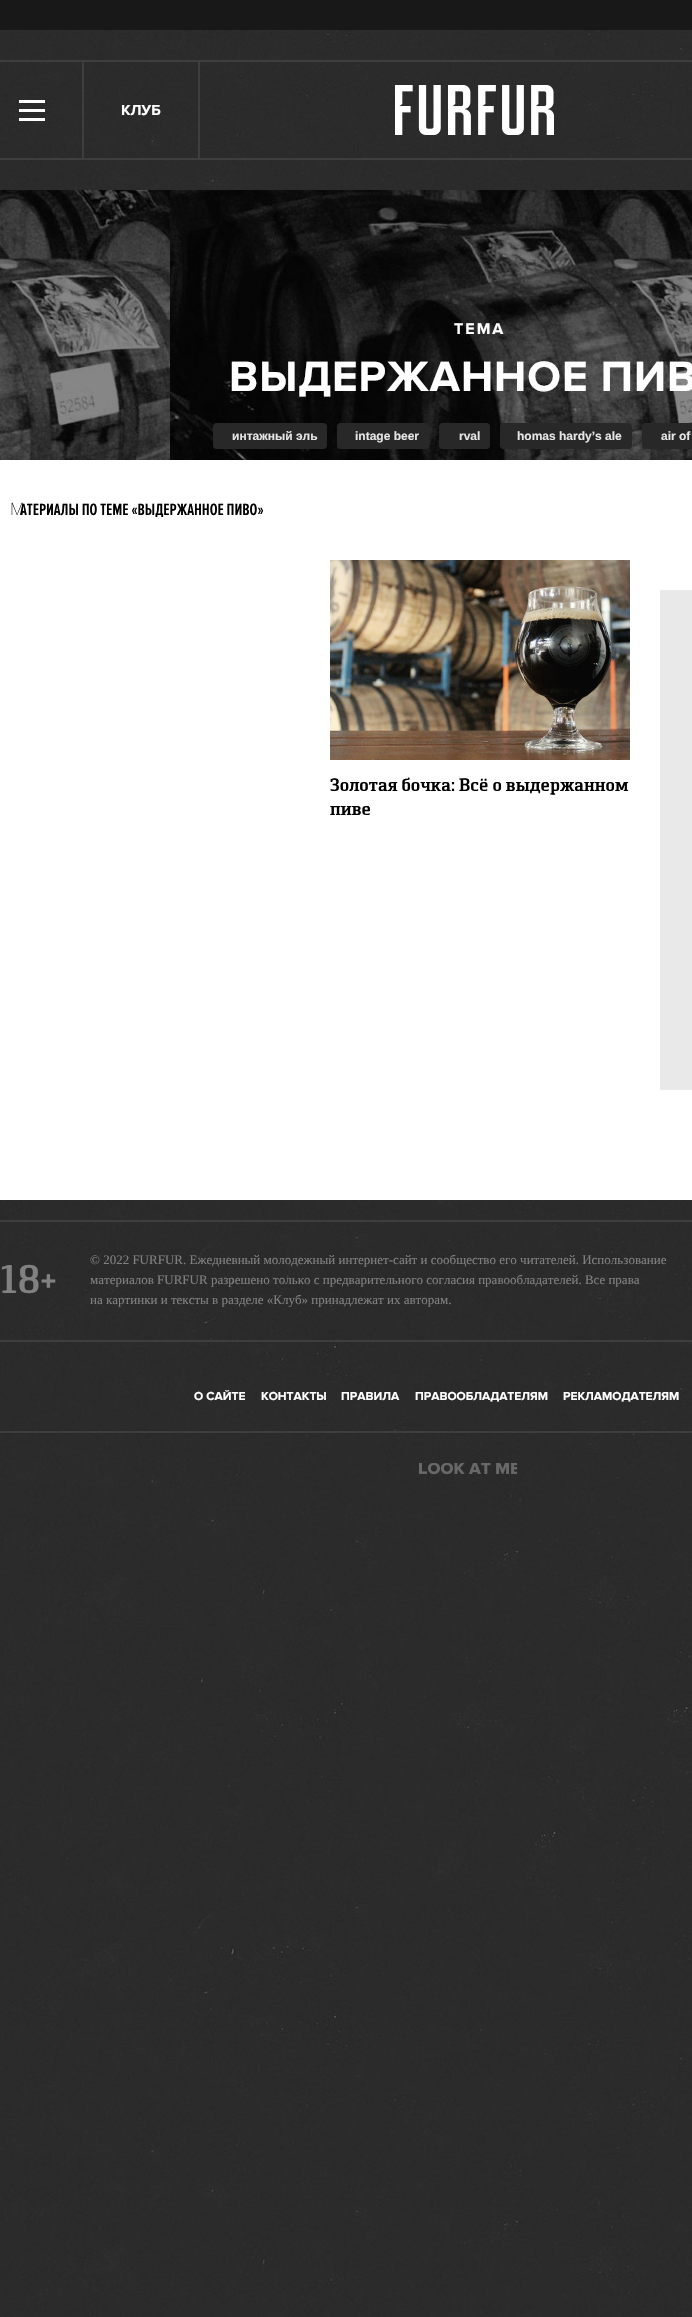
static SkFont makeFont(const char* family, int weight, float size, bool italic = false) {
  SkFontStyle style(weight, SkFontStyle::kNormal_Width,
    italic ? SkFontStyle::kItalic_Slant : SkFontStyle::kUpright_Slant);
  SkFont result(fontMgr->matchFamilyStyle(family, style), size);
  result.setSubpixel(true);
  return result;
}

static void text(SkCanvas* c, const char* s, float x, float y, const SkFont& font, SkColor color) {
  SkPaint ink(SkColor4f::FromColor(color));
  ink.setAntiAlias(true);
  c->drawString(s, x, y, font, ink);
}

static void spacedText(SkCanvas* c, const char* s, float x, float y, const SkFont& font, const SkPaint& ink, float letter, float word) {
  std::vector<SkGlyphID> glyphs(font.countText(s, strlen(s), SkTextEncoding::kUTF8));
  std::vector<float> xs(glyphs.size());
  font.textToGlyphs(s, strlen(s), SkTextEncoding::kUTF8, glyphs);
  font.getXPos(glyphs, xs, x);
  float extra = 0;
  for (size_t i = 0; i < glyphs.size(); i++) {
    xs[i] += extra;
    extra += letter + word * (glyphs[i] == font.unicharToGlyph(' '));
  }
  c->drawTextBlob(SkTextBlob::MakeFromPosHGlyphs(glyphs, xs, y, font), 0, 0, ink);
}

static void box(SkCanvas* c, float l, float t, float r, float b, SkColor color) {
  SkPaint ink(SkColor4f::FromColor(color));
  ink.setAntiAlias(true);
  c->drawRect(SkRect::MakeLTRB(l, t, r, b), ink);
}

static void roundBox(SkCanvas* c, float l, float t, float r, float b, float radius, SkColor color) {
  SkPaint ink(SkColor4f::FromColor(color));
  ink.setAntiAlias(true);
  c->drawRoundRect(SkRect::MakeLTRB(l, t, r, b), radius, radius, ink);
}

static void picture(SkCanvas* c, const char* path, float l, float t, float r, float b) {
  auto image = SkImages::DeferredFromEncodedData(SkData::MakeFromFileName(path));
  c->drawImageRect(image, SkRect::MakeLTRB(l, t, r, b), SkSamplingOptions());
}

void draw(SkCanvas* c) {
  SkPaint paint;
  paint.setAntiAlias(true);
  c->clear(0xffffffff);
  picture(c, "img_01.png", 0, 30, 692, 2317);
  box(c, 0, 0, 692, 30, 0xff181818);
  paint.setStyle(SkPaint::kStroke_Style);
  paint.setStrokeWidth(2);
  paint.setColor(0xff3e3e3e);
  c->drawRect(SkRect::MakeLTRB(-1, 61, 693, 159), paint);
  box(c, 82, 62, 84, 158, 0xff3e3e3e);
  box(c, 19, 109, 45, 112, 0xffffffff);
  box(c, 19, 100, 45, 103, 0xffffffff);
  box(c, 19, 118, 45, 121, 0xffffffff);
  box(c, 198, 62, 200, 158, 0xff3e3e3e);
  SkFont face1 = makeFont("Proxima Nova", 700, 15);
  text(c, "КЛУБ", 121, 115, face1, 0xffffffff);
  picture(c, "img_02.png", 395, 85, 554, 135);
  picture(c, "img_03.png", 0, 190, 692, 460);
  SkFont face2 = makeFont("Proxima Nova", 700, 16);
  paint.setStyle(SkPaint::kFill_Style);
  paint.setColor(0xffffffff);
  spacedText(c, "ТЕМА", 454, 334, face2, paint, 2, 0);
  SkFont face3 = makeFont("Proxima Nova", 700, 44);
  spacedText(c, "ВЫДЕРЖАННОЕ ПИВ", 229, 391, face3, paint, 1, 0);
  roundBox(c, 213, 423, 327, 449, 4, 0xff282828);
  SkFont face4 = makeFont("Liberation Sans", 700, 12);
  text(c, "интажный эль", 232, 440, face4, 0xffe5e5e5);
  roundBox(c, 337, 423, 429, 449, 4, 0xff282828);
  text(c, "intage beer", 355, 440, face4, 0xffe5e5e5);
  roundBox(c, 439, 423, 490, 449, 4, 0xff282828);
  text(c, "rval", 459, 440, face4, 0xffe5e5e5);
  roundBox(c, 500, 423, 632, 449, 4, 0xff282828);
  text(c, "homas hardy’s ale", 517, 440, face4, 0xffe5e5e5);
  roundBox(c, 642, 423, 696, 449, 4, 0xff282828);
  text(c, "air of", 661, 440, face4, 0xffe5e5e5);
  box(c, 0, 460, 692, 1200, 0xffffffff);
  SkFont face5 = makeFont("Noto Sans", 100, 17);
  text(c, "М", 10, 515, face5, 0xff000000);
  SkFont face6 = makeFont("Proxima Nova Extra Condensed", 600, 17);
  text(c, "АТЕРИАЛЫ ПО ТЕМЕ «ВЫДЕРЖАННОЕ ПИВО»", 20, 515, face6, 0xff000000);
  picture(c, "img_04.png", 330, 560, 630, 760);
  SkFont face7 = makeFont("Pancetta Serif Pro", 600, 18);
  text(c, "Золотая бочка: Всё о выдержанном", 330, 791, face7, 0xff000000);
  text(c, "пиве", 330, 815, face7, 0xff000000);
  box(c, 660, 590, 692, 1090, 0xffe9e9e9);
  paint.setStyle(SkPaint::kStroke_Style);
  paint.setColor(0xff3e3e3e);
  c->drawRect(SkRect::MakeLTRB(-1, 1221, 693, 1432), paint);
  SkFont face8 = makeFont("Pancetta Serif Pro", 600, 40);
  text(c, "18+", 0, 1293, face8, 0xff818181);
  SkFont face9 = makeFont("Liberation Serif", 400, 13);
  text(c, "© 2022 FURFUR. Ежедневный молодежный интернет-сайт и сообщество его читателей. Использование", 90, 1264, face9, 0xff818181);
  text(c, "материалов FURFUR разрешено только с предварительного согласия правообладателей. Все права", 90, 1284, face9, 0xff818181);
  text(c, "на картинки и тексты в разделе «Клуб» принадлежат их авторам.", 90, 1304, face9, 0xff818181);
  box(c, 0, 1340, 692, 1342, 0xff3e3e3e);
  SkFont face10 = makeFont("Proxima Nova", 700, 12);
  text(c, "О САЙТЕ", 194, 1400, face10, 0xffffffff);
  text(c, "КОНТАКТЫ", 261, 1400, face10, 0xffffffff);
  text(c, "ПРАВИЛА", 341, 1400, face10, 0xffffffff);
  text(c, "ПРАВООБЛАДАТЕЛЯМ", 415, 1400, face10, 0xffffffff);
  text(c, "РЕКЛАМОДАТЕЛЯМ", 563, 1400, face10, 0xffffffff);
  picture(c, "img_05.png", 419, 1463, 517, 1475);
}
